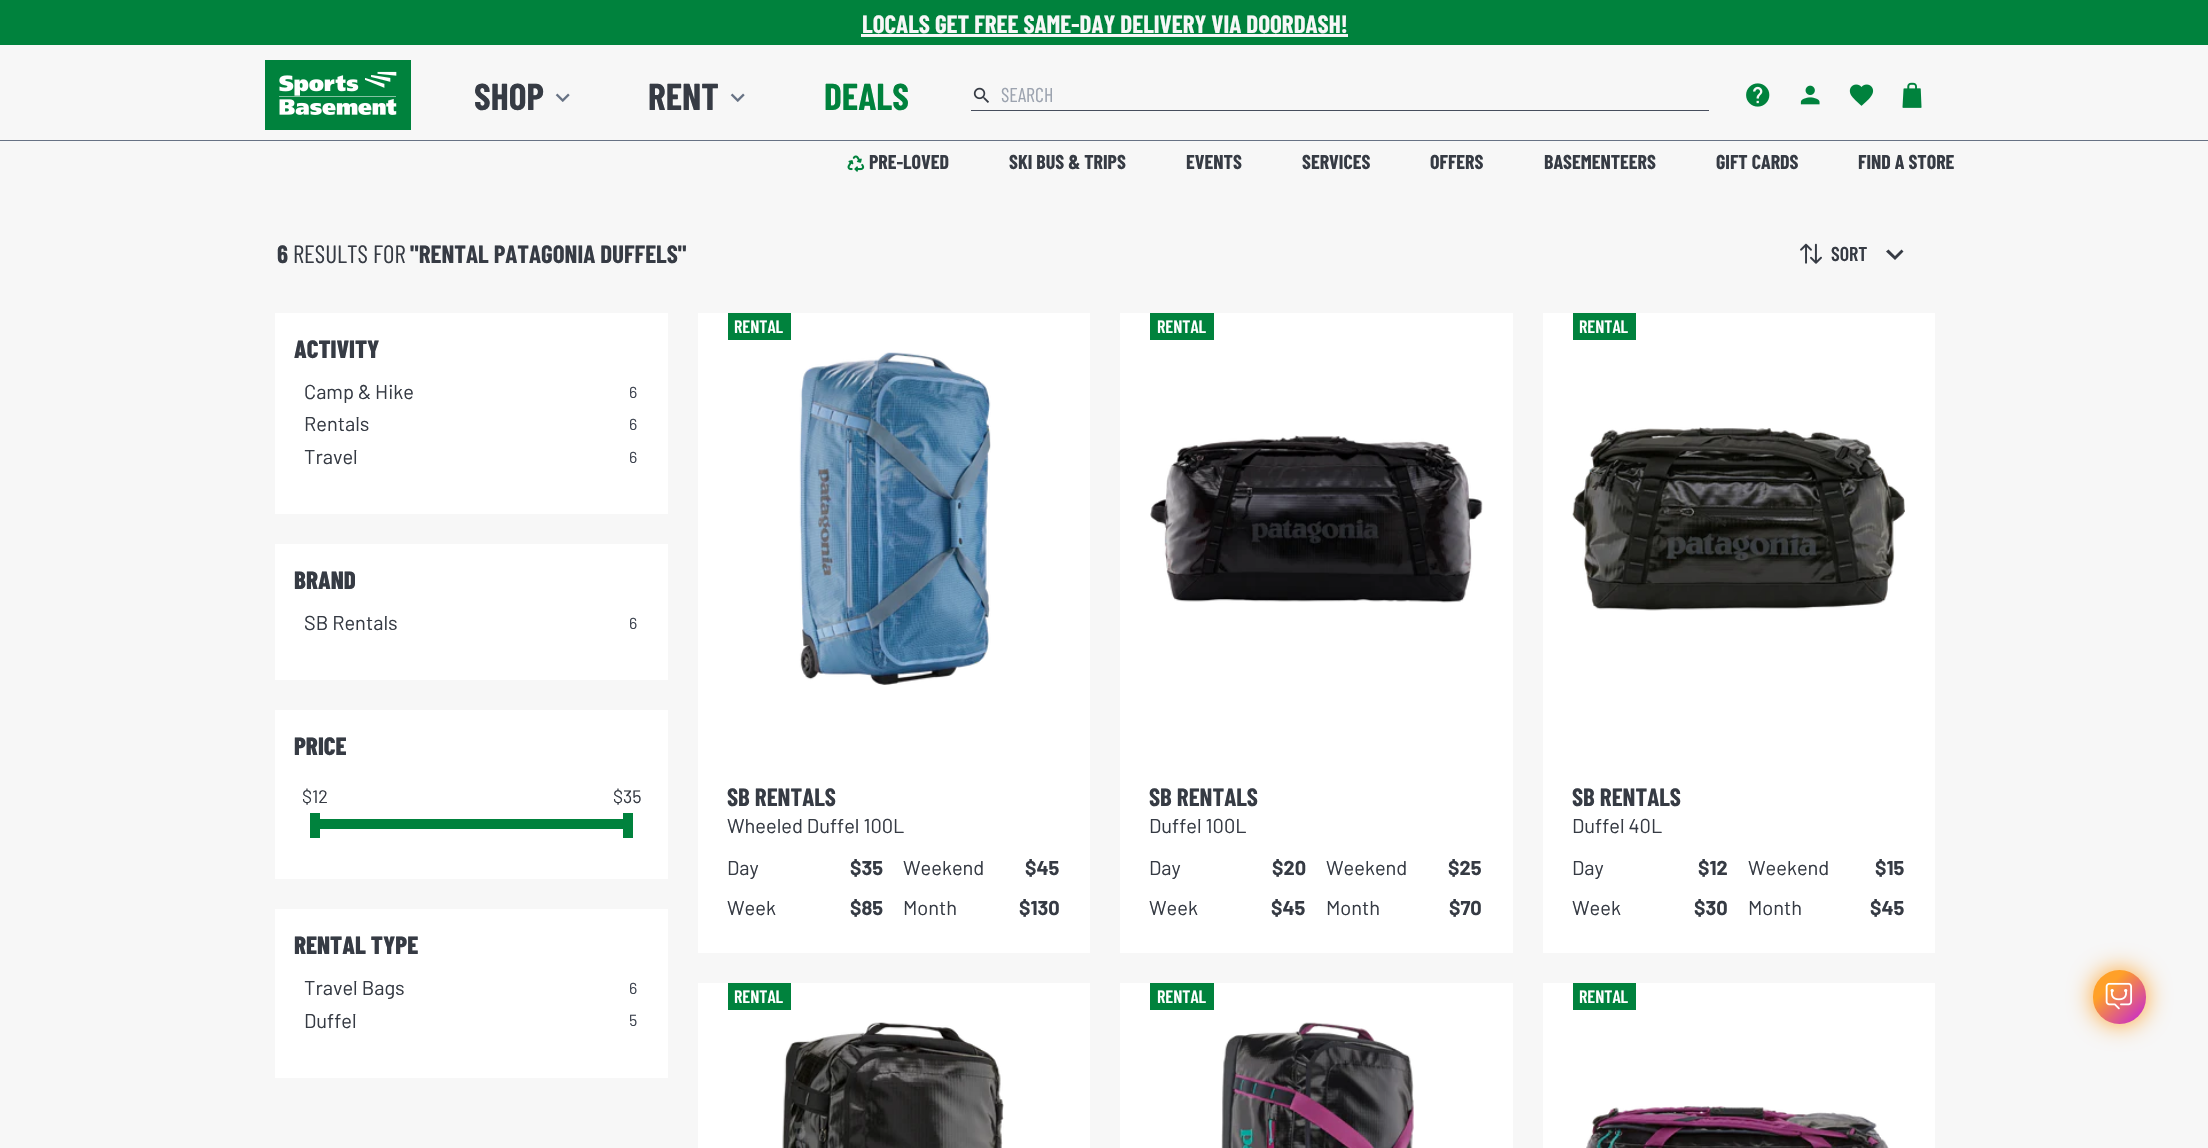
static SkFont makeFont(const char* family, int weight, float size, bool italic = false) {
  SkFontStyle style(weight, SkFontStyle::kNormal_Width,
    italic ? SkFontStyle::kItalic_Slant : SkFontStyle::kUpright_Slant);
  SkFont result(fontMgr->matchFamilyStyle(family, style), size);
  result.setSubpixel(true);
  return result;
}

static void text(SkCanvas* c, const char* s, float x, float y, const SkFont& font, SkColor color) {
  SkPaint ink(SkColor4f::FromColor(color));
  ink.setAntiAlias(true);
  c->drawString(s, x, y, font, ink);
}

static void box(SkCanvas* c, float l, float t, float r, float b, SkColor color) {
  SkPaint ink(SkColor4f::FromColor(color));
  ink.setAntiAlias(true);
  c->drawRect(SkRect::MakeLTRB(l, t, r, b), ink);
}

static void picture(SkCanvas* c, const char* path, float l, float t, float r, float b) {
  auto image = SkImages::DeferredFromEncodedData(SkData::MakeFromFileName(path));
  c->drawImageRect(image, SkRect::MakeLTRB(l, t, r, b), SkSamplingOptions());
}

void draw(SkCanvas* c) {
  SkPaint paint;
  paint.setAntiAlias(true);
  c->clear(0xfff7f7f7);
  box(c, 0, 0, 2208, 45, 0xff00823d);
  SkFont face1 = makeFont("Barlow Condensed", 700, 25);
  text(c, "LOCALS GET FREE SAME-DAY DELIVERY VIA DOORDASH!", 862, 33, face1, 0xfff7f7f7);
  box(c, 861, 34, 1348, 37, 0xfff7f7f7);
  picture(c, "img_01.png", 265, 60, 411, 130);
  SkFont face2 = makeFont("Barlow Condensed", 700, 37.5f);
  text(c, "SHOP", 474, 110, face2, 0xff363b44);
  picture(c, "img_02.png", 555, 93, 570, 102);
  text(c, "RENT", 648, 110, face2, 0xff363b44);
  picture(c, "img_02.png", 730, 93, 745, 102);
  text(c, "DEALS", 824, 110, face2, 0xff00823d);
  picture(c, "img_03.png", 973, 87, 989, 103);
  box(c, 971, 110, 1709, 111, 0xff474e5d);
  SkFont face3 = makeFont("Barlow Condensed", 400, 20);
  text(c, "SEARCH", 1001, 102, face3, 0xff9ca3af);
  picture(c, "img_04.png", 1746, 83, 1770, 107);
  picture(c, "img_05.png", 1800, 85, 1820, 105);
  picture(c, "img_06.png", 1849, 84, 1874, 106);
  picture(c, "img_07.png", 1902, 82, 1922, 108);
  box(c, 0, 140, 2208, 141, 0xff677284);
  picture(c, "img_08.png", 847, 155, 865, 172);
  SkFont face4 = makeFont("Barlow Condensed", 700, 20);
  text(c, "PRE-LOVED", 869, 169, face4, 0xff363b44);
  text(c, "SKI BUS & TRIPS", 1009, 169, face4, 0xff363b44);
  text(c, "EVENTS", 1186, 169, face4, 0xff363b44);
  text(c, "SERVICES", 1302, 169, face4, 0xff363b44);
  text(c, "OFFERS", 1430, 169, face4, 0xff363b44);
  text(c, "BASEMENTEERS", 1544, 169, face4, 0xff363b44);
  text(c, "GIFT CARDS", 1716, 169, face4, 0xff363b44);
  text(c, "FIND A STORE", 1858, 169, face4, 0xff363b44);
  text(c, "6", 277, 263, face1, 0xff363b44);
  SkFont face5 = makeFont("Barlow Condensed", 400, 25);
  text(c, "RESULTS FOR", 293, 263, face5, 0xff363b44);
  text(c, "\"RENTAL PATAGONIA DUFFELS\"", 410, 263, face1, 0xff363b44);
  picture(c, "img_09.png", 1800, 243, 1822, 264);
  SkFont face6 = makeFont("Barlow Condensed", 600, 20);
  text(c, "SORT", 1831, 261, face6, 0xff363b44);
  paint.setColor(0xff363b44);
  c->drawPath(SkPathBuilder().moveTo(1888.5f, 249.5f).lineTo(1895, 256).lineTo(1901.5f, 249.5f).lineTo(1903.5f, 251.5f).lineTo(1895, 260).lineTo(1886, 251.5f).close().detach(), paint);
  box(c, 275, 313, 668, 514, 0xffffffff);
  SkFont face7 = makeFont("Barlow Condensed", 800, 25);
  text(c, "ACTIVITY", 294, 358, face7, 0xff363b44);
  SkFont face8 = makeFont("Barlow", 400, 20);
  text(c, "Camp & Hike", 304, 399, face8, 0xff363b44);
  SkFont face9 = makeFont("Barlow", 400, 16);
  text(c, "6", 629, 398, face9, 0xff3d434f);
  text(c, "Rentals", 304, 431, face8, 0xff363b44);
  text(c, "6", 629, 430, face9, 0xff3d434f);
  text(c, "Travel", 304, 464, face8, 0xff363b44);
  text(c, "6", 629, 463, face9, 0xff3d434f);
  box(c, 275, 544, 668, 680, 0xffffffff);
  text(c, "BRAND", 294, 589, face7, 0xff363b44);
  text(c, "SB Rentals", 304, 630, face8, 0xff363b44);
  text(c, "6", 629, 629, face9, 0xff3d434f);
  box(c, 275, 710, 668, 879, 0xffffffff);
  text(c, "PRICE", 294, 755, face7, 0xff363b44);
  box(c, 310, 813, 320, 838, 0xff00823d);
  SkFont face10 = makeFont("Barlow", 400, 18);
  text(c, "$12", 302, 803, face10, 0xff363b44);
  box(c, 623, 813, 633, 838, 0xff00823d);
  text(c, "$35", 613, 803, face10, 0xff363b44);
  box(c, 320, 819, 623, 829, 0xff00823d);
  box(c, 275, 909, 668, 1078, 0xffffffff);
  text(c, "RENTAL TYPE", 294, 954, face7, 0xff363b44);
  text(c, "Travel Bags", 304, 995, face8, 0xff363b44);
  text(c, "6", 629, 994, face9, 0xff3d434f);
  text(c, "Duffel", 304, 1028, face8, 0xff363b44);
  text(c, "5", 629, 1026, face9, 0xff3d434f);
  box(c, 698, 313, 1090, 953, 0xffffffff);
  box(c, 728, 313, 791, 340, 0xff00823d);
  SkFont face11 = makeFont("Barlow Condensed", 600, 18);
  text(c, "RENTAL", 734, 333, face11, 0xffffffff);
  picture(c, "img_10.png", 799, 352, 991, 685);
  text(c, "SB RENTALS", 727, 806, face1, 0xff363b44);
  text(c, "Wheeled Duffel 100L", 727, 833, face8, 0xff363b44);
  text(c, "Day", 727, 875, face8, 0xff363b44);
  SkFont face12 = makeFont("Barlow", 700, 20);
  text(c, "$35", 850, 875, face12, 0xff363b44);
  text(c, "Weekend", 903, 875, face8, 0xff363b44);
  text(c, "$45", 1025, 875, face12, 0xff363b44);
  text(c, "Week", 727, 915, face8, 0xff363b44);
  text(c, "$85", 850, 915, face12, 0xff363b44);
  text(c, "Month", 903, 915, face8, 0xff363b44);
  text(c, "$130", 1019, 915, face12, 0xff363b44);
  box(c, 1120, 313, 1513, 953, 0xffffffff);
  box(c, 1150, 313, 1214, 340, 0xff00823d);
  text(c, "RENTAL", 1157, 333, face11, 0xffffffff);
  picture(c, "img_11.png", 1150, 435, 1483, 603);
  text(c, "SB RENTALS", 1149, 806, face1, 0xff363b44);
  text(c, "Duffel 100L", 1149, 833, face8, 0xff363b44);
  text(c, "Day", 1149, 875, face8, 0xff363b44);
  text(c, "$20", 1272, 875, face12, 0xff363b44);
  text(c, "Weekend", 1326, 875, face8, 0xff363b44);
  text(c, "$25", 1448, 875, face12, 0xff363b44);
  text(c, "Week", 1149, 915, face8, 0xff363b44);
  text(c, "$45", 1271, 915, face12, 0xff363b44);
  text(c, "Month", 1326, 915, face8, 0xff363b44);
  text(c, "$70", 1449, 915, face12, 0xff363b44);
  box(c, 1543, 313, 1935, 953, 0xffffffff);
  box(c, 1573, 313, 1636, 340, 0xff00823d);
  text(c, "RENTAL", 1579, 333, face11, 0xffffffff);
  picture(c, "img_12.png", 1572, 427, 1905, 611);
  text(c, "SB RENTALS", 1572, 806, face1, 0xff363b44);
  text(c, "Duffel 40L", 1572, 833, face8, 0xff363b44);
  text(c, "Day", 1572, 875, face8, 0xff363b44);
  text(c, "$12", 1698, 875, face12, 0xff363b44);
  text(c, "Weekend", 1748, 875, face8, 0xff363b44);
  text(c, "$15", 1875, 875, face12, 0xff363b44);
  text(c, "Week", 1572, 915, face8, 0xff363b44);
  text(c, "$30", 1694, 915, face12, 0xff363b44);
  text(c, "Month", 1748, 915, face8, 0xff363b44);
  text(c, "$45", 1870, 915, face12, 0xff363b44);
  box(c, 698, 983, 1090, 1148, 0xffffffff);
  box(c, 728, 983, 791, 1010, 0xff00823d);
  text(c, "RENTAL", 734, 1003, face11, 0xffffffff);
  picture(c, "img_13.png", 782, 1022, 1004, 1148);
  box(c, 1120, 983, 1513, 1148, 0xffffffff);
  box(c, 1150, 983, 1214, 1010, 0xff00823d);
  text(c, "RENTAL", 1157, 1003, face11, 0xffffffff);
  picture(c, "img_14.png", 1221, 1022, 1414, 1148);
  box(c, 1543, 983, 1935, 1148, 0xffffffff);
  box(c, 1573, 983, 1636, 1010, 0xff00823d);
  text(c, "RENTAL", 1579, 1003, face11, 0xffffffff);
  picture(c, "img_15.png", 1586, 1106, 1889, 1148);
  paint.setColor(0xffffa028);
  paint.setMaskFilter(SkMaskFilter::MakeBlur(kNormal_SkBlurStyle, 12.5f));
  c->drawRoundRect(SkRect::MakeLTRB(2093, 970, 2146, 1024), 26.5f, 26.5f, paint);
  paint.setMaskFilter(nullptr);
  {
    const SkColor colors[] = {0xffffa028, 0xffc21ddf};
    const float stops[] = {0.3f, 1};
    const SkPoint ends[] = {{2093, 970}, {2146, 1024}};
    paint.setShader(SkGradientShader::MakeLinear(ends, colors, stops, 2, SkTileMode::kClamp));
    paint.setAlpha(255);
  }
  c->drawRoundRect(SkRect::MakeLTRB(2093, 970, 2146, 1024), 26.5f, 26.5f, paint);
  picture(c, "img_16.png", 2105, 982, 2133, 1010);
}
